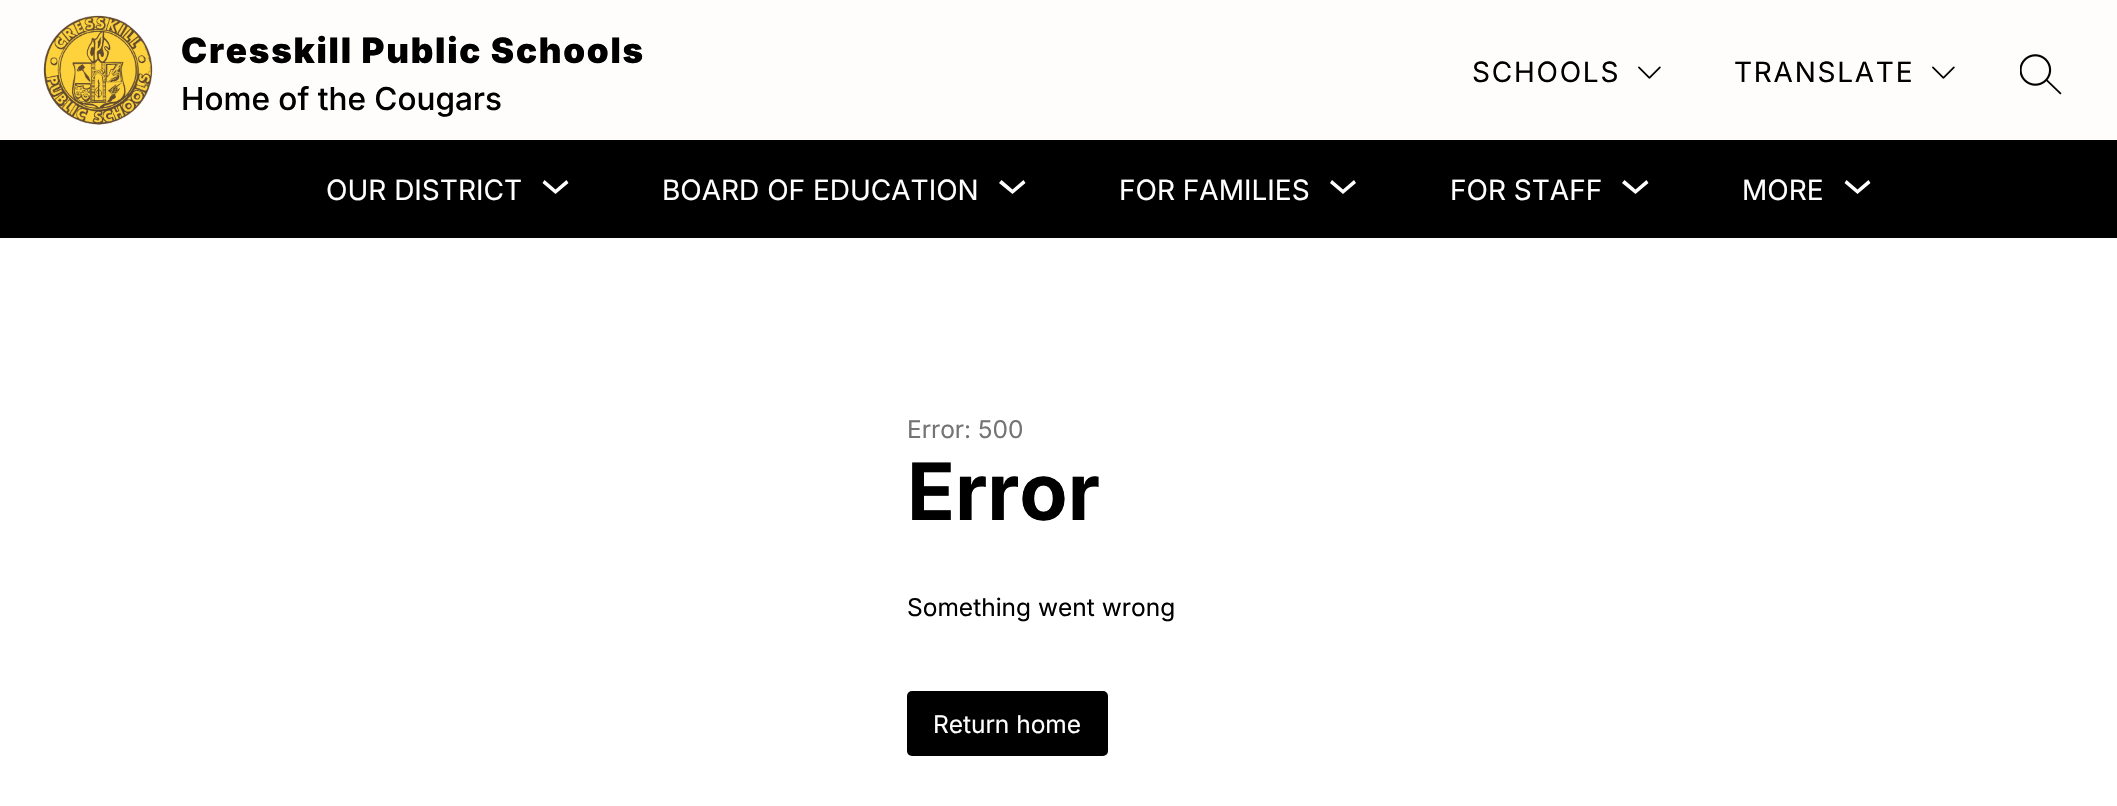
static SkFont makeFont(const char* family, int weight, float size, bool italic = false) {
  SkFontStyle style(weight, SkFontStyle::kNormal_Width,
    italic ? SkFontStyle::kItalic_Slant : SkFontStyle::kUpright_Slant);
  SkFont result(fontMgr->matchFamilyStyle(family, style), size);
  result.setSubpixel(true);
  return result;
}

static void text(SkCanvas* c, const char* s, float x, float y, const SkFont& font, SkColor color) {
  SkPaint ink(SkColor4f::FromColor(color));
  ink.setAntiAlias(true);
  c->drawString(s, x, y, font, ink);
}

static void spacedText(SkCanvas* c, const char* s, float x, float y, const SkFont& font, const SkPaint& ink, float letter, float word) {
  std::vector<SkGlyphID> glyphs(font.countText(s, strlen(s), SkTextEncoding::kUTF8));
  std::vector<float> xs(glyphs.size());
  font.textToGlyphs(s, strlen(s), SkTextEncoding::kUTF8, glyphs);
  font.getXPos(glyphs, xs, x);
  float extra = 0;
  for (size_t i = 0; i < glyphs.size(); i++) {
    xs[i] += extra;
    extra += letter + word * (glyphs[i] == font.unicharToGlyph(' '));
  }
  c->drawTextBlob(SkTextBlob::MakeFromPosHGlyphs(glyphs, xs, y, font), 0, 0, ink);
}

static void box(SkCanvas* c, float l, float t, float r, float b, SkColor color) {
  SkPaint ink(SkColor4f::FromColor(color));
  ink.setAntiAlias(true);
  c->drawRect(SkRect::MakeLTRB(l, t, r, b), ink);
}

static void roundBox(SkCanvas* c, float l, float t, float r, float b, float radius, SkColor color) {
  SkPaint ink(SkColor4f::FromColor(color));
  ink.setAntiAlias(true);
  c->drawRoundRect(SkRect::MakeLTRB(l, t, r, b), radius, radius, ink);
}

static void picture(SkCanvas* c, const char* path, float l, float t, float r, float b) {
  auto image = SkImages::DeferredFromEncodedData(SkData::MakeFromFileName(path));
  c->drawImageRect(image, SkRect::MakeLTRB(l, t, r, b), SkSamplingOptions());
}

void draw(SkCanvas* c) {
  SkPaint paint;
  paint.setAntiAlias(true);
  c->clear(0xffffffff);
  box(c, 0, 0, 2117, 140, 0xfffffcfc);
  picture(c, "img_01.png", 43, 15, 153, 125);
  SkFont face1 = makeFont("Inter", 900, 35);
  paint.setColor(0xff000000);
  spacedText(c, "Cresskill Public Schools", 181, 63, face1, paint, 1.75f, 0);
  SkFont face2 = makeFont("Inter", 500, 31.5f);
  text(c, "Home of the Cougars", 181, 110, face2, 0xff000000);
  SkFont face3 = makeFont("Inter", 400, 28);
  spacedText(c, "SCHOOLS", 1472, 82, face3, paint, 1.75f, 0);
  picture(c, "img_02.png", 1638, 66, 1661, 79);
  spacedText(c, "TRANSLATE", 1734, 82, face3, paint, 1.75f, 0);
  picture(c, "img_02.png", 1932, 66, 1955, 79);
  picture(c, "img_03.png", 2020, 54, 2062, 95);
  box(c, 0, 140, 2117, 238, 0xff000000);
  text(c, "OUR DISTRICT", 326, 200, face3, 0xffffffff);
  paint.setColor(0xffffffff);
  c->drawPath(SkPathBuilder(SkPathFillType::kEvenOdd).moveTo(566.5f, 180).lineTo(555.5f, 189.5f).lineTo(544.5f, 180).lineTo(542.5f, 183).lineTo(555.5f, 194).lineTo(568.5f, 183).close().detach(), paint);
  text(c, "BOARD OF EDUCATION", 662, 200, face3, 0xffffffff);
  c->drawPath(SkPathBuilder(SkPathFillType::kEvenOdd).moveTo(1023.5f, 180).lineTo(1012.5f, 189.5f).lineTo(1001.5f, 180).lineTo(999, 183).lineTo(1012.5f, 194).lineTo(1025.5f, 183).close().detach(), paint);
  text(c, "FOR FAMILIES", 1119, 200, face3, 0xffffffff);
  c->drawPath(SkPathBuilder(SkPathFillType::kEvenOdd).moveTo(1354, 180).lineTo(1343, 189.5f).lineTo(1332, 180).lineTo(1330, 183).lineTo(1343, 194).lineTo(1356, 183).close().detach(), paint);
  text(c, "FOR STAFF", 1450, 200, face3, 0xffffffff);
  c->drawPath(SkPathBuilder(SkPathFillType::kEvenOdd).moveTo(1646.5f, 180).lineTo(1635.5f, 189.5f).lineTo(1624.5f, 180).lineTo(1622, 183).lineTo(1635.5f, 194).lineTo(1648.5f, 183).close().detach(), paint);
  text(c, "MORE", 1742, 200, face3, 0xffffffff);
  c->drawPath(SkPathBuilder(SkPathFillType::kEvenOdd).moveTo(1868.5f, 180).lineTo(1857.5f, 189.5f).lineTo(1846.5f, 180).lineTo(1844.5f, 183).lineTo(1857.5f, 194).lineTo(1870.5f, 183).close().detach(), paint);
  SkFont face4 = makeFont("Inter", 400, 24.5f);
  text(c, "Error: 500", 907, 438, face4, 0xff747474);
  SkFont face5 = makeFont("Inter", 700, 79);
  text(c, "Error", 907, 520, face5, 0xff000000);
  text(c, "Something went wrong", 907, 616, face4, 0xff000000);
  roundBox(c, 907, 691, 1108, 756, 5, 0xff000000);
  text(c, "Return home", 933, 733, face4, 0xffffffff);
}
